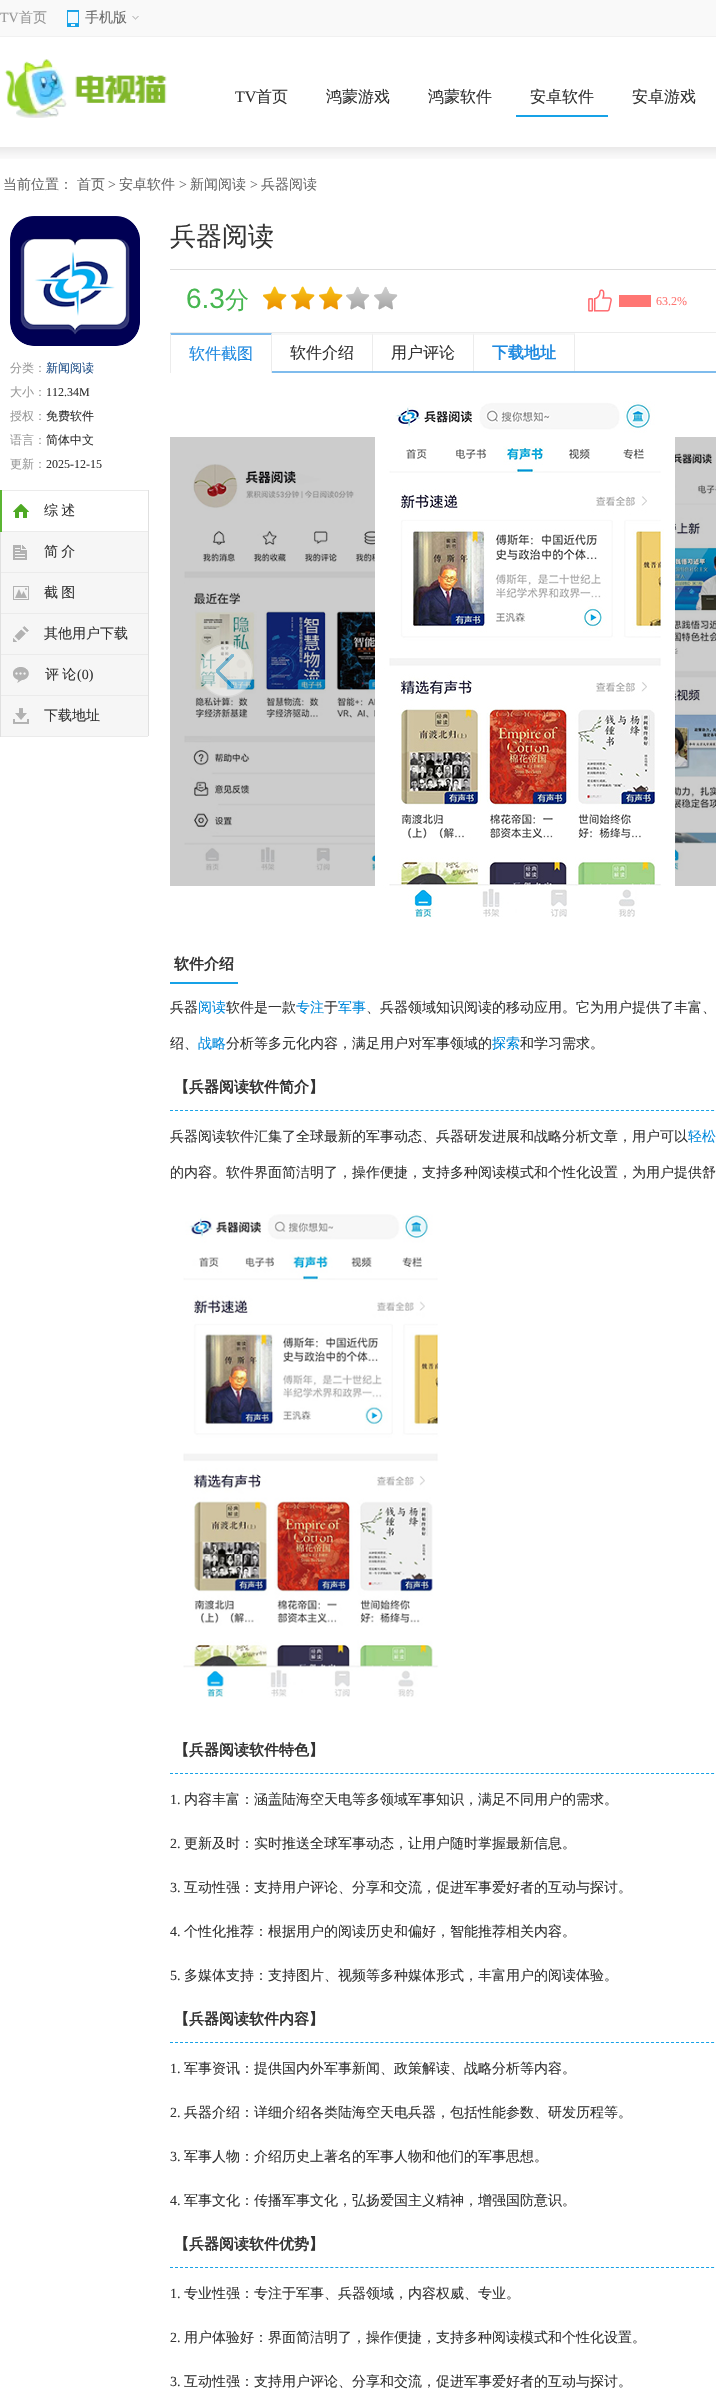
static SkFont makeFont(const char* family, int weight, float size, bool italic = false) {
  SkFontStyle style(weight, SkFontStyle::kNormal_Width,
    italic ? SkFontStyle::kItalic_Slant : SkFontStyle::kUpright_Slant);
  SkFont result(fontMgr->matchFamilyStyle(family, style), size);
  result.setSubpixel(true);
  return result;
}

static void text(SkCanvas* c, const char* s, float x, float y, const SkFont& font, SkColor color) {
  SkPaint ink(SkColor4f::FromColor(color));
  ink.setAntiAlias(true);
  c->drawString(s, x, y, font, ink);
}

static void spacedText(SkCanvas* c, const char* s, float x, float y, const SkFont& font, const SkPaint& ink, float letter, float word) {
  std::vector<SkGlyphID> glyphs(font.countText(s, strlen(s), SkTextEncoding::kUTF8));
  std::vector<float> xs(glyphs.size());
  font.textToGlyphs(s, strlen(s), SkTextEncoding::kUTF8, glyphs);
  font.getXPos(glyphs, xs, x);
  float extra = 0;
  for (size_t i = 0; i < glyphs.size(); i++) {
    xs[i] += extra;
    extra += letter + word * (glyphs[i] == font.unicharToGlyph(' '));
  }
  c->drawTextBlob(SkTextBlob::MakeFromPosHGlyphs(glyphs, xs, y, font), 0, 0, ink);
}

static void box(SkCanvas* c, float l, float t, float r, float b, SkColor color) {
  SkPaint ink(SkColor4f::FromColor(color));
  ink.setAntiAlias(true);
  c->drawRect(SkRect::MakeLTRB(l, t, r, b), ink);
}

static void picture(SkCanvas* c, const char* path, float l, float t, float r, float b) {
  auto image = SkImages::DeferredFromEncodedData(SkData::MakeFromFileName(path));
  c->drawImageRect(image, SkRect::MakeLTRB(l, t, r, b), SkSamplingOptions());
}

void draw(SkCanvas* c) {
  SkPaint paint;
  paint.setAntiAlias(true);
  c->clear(0xffffffff);
  box(c, 170, 437, 375, 886, 0xffcccccc);
  box(c, 675, 437, 716, 886, 0xffcccccc);
  box(c, 0, 0, 716, 36, 0xfff9f9f9);
  box(c, 0, 36, 716, 37, 0xfff1f1f1);
  SkFont face1 = makeFont("Liberation Serif", 400, 14);
  text(c, "TV", 0, 22, face1, 0xff999999);
  SkFont face2 = makeFont("WenQuanYi Zen Hei", 500, 14);
  text(c, "首页", 19, 22, face2, 0xff999999);
  picture(c, "img_01.png", 67, 10, 79, 27);
  text(c, "手机版", 85, 22, face2, 0xff696969);
  picture(c, "img_02.png", 132, 16, 139, 20);
  picture(c, "img_03.png", 4, 59, 167, 118);
  SkFont face3 = makeFont("Liberation Serif", 400, 16);
  text(c, "TV", 235, 102, face3, 0xff333333);
  SkFont face4 = makeFont("WenQuanYi Zen Hei", 500, 16);
  text(c, "首页", 256, 102, face4, 0xff333333);
  text(c, "鸿蒙游戏", 326, 102, face4, 0xff333333);
  text(c, "鸿蒙软件", 428, 102, face4, 0xff333333);
  box(c, 516, 115, 608, 117, 0xff17a2e7);
  text(c, "安卓软件", 530, 102, face4, 0xff333333);
  text(c, "安卓游戏", 632, 102, face4, 0xff333333);
  picture(c, "img_04.png", 0, 147, 716, 159);
  text(c, "当前位置：", 3, 189, face2, 0xff696969);
  text(c, "首页", 77, 189, face2, 0xff696969);
  text(c, ">", 108, 189, face1, 0xff696969);
  text(c, "安卓软件", 119, 189, face2, 0xff696969);
  text(c, ">", 179, 189, face1, 0xff696969);
  text(c, "新闻阅读", 190, 189, face2, 0xff696969);
  text(c, ">", 250, 189, face1, 0xff696969);
  text(c, "兵器阅读", 261, 189, face2, 0xff696969);
  picture(c, "img_05.png", 10, 216, 140, 346);
  picture(c, "img_06.png", 10, 216, 140, 346);
  SkFont face5 = makeFont("WenQuanYi Zen Hei", 500, 12);
  text(c, "分类：", 10, 372, face5, 0xff999999);
  text(c, "新闻阅读", 46, 372, face5, 0xff1f4f88);
  text(c, "大小：", 10, 396, face5, 0xff999999);
  SkFont face6 = makeFont("Liberation Serif", 400, 12);
  text(c, "112.34M", 46, 396, face6, 0xff333333);
  text(c, "授权：", 10, 420, face5, 0xff999999);
  text(c, "免费软件", 46, 420, face5, 0xff333333);
  text(c, "语言：", 10, 444, face5, 0xff999999);
  text(c, "简体中文", 46, 444, face5, 0xff333333);
  text(c, "更新：", 10, 468, face5, 0xff999999);
  text(c, "2025-12-15", 46, 468, face6, 0xff333333);
  box(c, 1, 532, 148, 736, 0xfff6f6f6);
  box(c, 148, 490, 149, 736, 0xffe0e0e0);
  box(c, 0, 531, 1, 737, 0xffe0e0e0);
  box(c, 0, 490, 2, 532, 0xff5bb532);
  box(c, 2, 490, 148, 491, 0xffebebeb);
  box(c, 2, 531, 148, 532, 0xffebebeb);
  picture(c, "img_07.png", 13, 504, 29, 518);
  paint.setColor(0xff333333);
  spacedText(c, "综 述", 44, 515, face2, paint, 0, -1);
  box(c, 1, 572, 148, 573, 0xffebebeb);
  picture(c, "img_08.png", 13, 545, 27, 560);
  spacedText(c, "简 介", 44, 556, face2, paint, 0, -1);
  box(c, 1, 613, 148, 614, 0xffebebeb);
  picture(c, "img_09.png", 13, 586, 29, 600);
  spacedText(c, "截 图", 44, 597, face2, paint, 0, -1);
  box(c, 1, 654, 148, 655, 0xffebebeb);
  picture(c, "img_10.png", 13, 626, 29, 642);
  text(c, "其他用户下载", 44, 638, face2, 0xff333333);
  box(c, 1, 695, 148, 696, 0xffebebeb);
  picture(c, "img_11.png", 13, 667, 29, 683);
  spacedText(c, "评 论", 45, 679, face2, paint, 0, -1);
  text(c, "(0)", 77, 679, face1, 0xff333333);
  box(c, 1, 736, 148, 737, 0xffebebeb);
  picture(c, "img_12.png", 13, 708, 29, 724);
  text(c, "下载地址", 44, 720, face2, 0xff333333);
  box(c, 170, 269, 716, 270, 0xffdddddd);
  SkFont face7 = makeFont("WenQuanYi Zen Hei", 500, 26);
  text(c, "兵器阅读", 170, 245, face7, 0xff333333);
  SkFont face8 = makeFont("Liberation Sans", 400, 28);
  text(c, "6.3", 186, 308, face8, 0xff47b751);
  SkFont face9 = makeFont("WenQuanYi Zen Hei", 500, 24);
  text(c, "分", 225, 308, face9, 0xff47b751);
  picture(c, "img_13.png", 263, 286, 398, 310);
  picture(c, "img_14.png", 588, 289, 612, 312);
  box(c, 619, 295, 651, 307, 0xffff7673);
  text(c, "63.2%", 656, 305, face6, 0xffff7673);
  box(c, 170, 332, 716, 333, 0xffececec);
  paint.setColor(0xff7fbced);
  c->drawPath(SkPathBuilder().moveTo(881, 373).lineTo(170, 373).lineTo(170, 371).lineTo(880, 371).close().detach(), paint);
  box(c, 170, 371, 272, 373, 0xffffffff);
  c->drawPath(SkPathBuilder().moveTo(170, 333).lineTo(272, 333).lineTo(271, 335).lineTo(171, 335).close().detach(), paint);
  paint.setColor(0xffececec);
  c->drawPath(SkPathBuilder().moveTo(272, 333).lineTo(272, 373).lineTo(271, 373).lineTo(271, 335).close().detach(), paint);
  c->drawPath(SkPathBuilder().moveTo(170, 373).lineTo(170, 333).lineTo(171, 335).lineTo(171, 373).close().detach(), paint);
  text(c, "软件截图", 189, 359, face4, 0xff1e89e0);
  paint.setColor(0xfff7f7f7);
  c->drawPath(SkPathBuilder().moveTo(272, 333).lineTo(373, 333).lineTo(372, 335).lineTo(272, 335).close().detach(), paint);
  paint.setColor(0xffececec);
  c->drawPath(SkPathBuilder().moveTo(373, 333).lineTo(373, 371).lineTo(372, 371).lineTo(372, 335).close().detach(), paint);
  text(c, "软件介绍", 290, 358, face4, 0xff333333);
  paint.setColor(0xfff7f7f7);
  c->drawPath(SkPathBuilder().moveTo(373, 333).lineTo(474, 333).lineTo(473, 335).lineTo(373, 335).close().detach(), paint);
  paint.setColor(0xffececec);
  c->drawPath(SkPathBuilder().moveTo(474, 333).lineTo(474, 371).lineTo(473, 371).lineTo(473, 335).close().detach(), paint);
  text(c, "用户评论", 391, 358, face4, 0xff333333);
  paint.setColor(0xfff7f7f7);
  c->drawPath(SkPathBuilder().moveTo(474, 333).lineTo(575, 333).lineTo(574, 335).lineTo(474, 335).close().detach(), paint);
  paint.setColor(0xffececec);
  c->drawPath(SkPathBuilder().moveTo(575, 333).lineTo(575, 371).lineTo(574, 371).lineTo(574, 335).close().detach(), paint);
  SkFont face10 = makeFont("WenQuanYi Zen Hei", 700, 16);
  text(c, "下载地址", 492, 358, face10, 0xff1e89e0);
  picture(c, "img_15.png", 184, 464, 375, 871);
  picture(c, "img_16.png", 375, 401, 675, 919);
  picture(c, "img_17.png", 675, 451, 716, 871);
  picture(c, "img_18.png", 200, 644, 253, 697);
  box(c, 170, 982, 238, 984, 0xff17a2e7);
  SkFont face11 = makeFont("WenQuanYi Zen Hei", 700, 15);
  text(c, "软件介绍", 174, 969, face11, 0xff333333);
  text(c, "兵器", 170, 1012, face2, 0xff333333);
  text(c, "阅读", 198, 1012, face2, 0xff0089dc);
  text(c, "软件是一款", 226, 1012, face2, 0xff333333);
  text(c, "专注", 296, 1012, face2, 0xff0089dc);
  text(c, "于", 324, 1012, face2, 0xff333333);
  text(c, "军事", 338, 1012, face2, 0xff0089dc);
  text(c, "、兵器领域知识阅读的移动应用。它为用户提供了丰富、", 366, 1012, face2, 0xff333333);
  text(c, "绍、", 170, 1048, face2, 0xff333333);
  text(c, "战略", 198, 1048, face2, 0xff0089dc);
  text(c, "分析等多元化内容，满足用户对军事领域的", 226, 1048, face2, 0xff333333);
  text(c, "探索", 492, 1048, face2, 0xff0089dc);
  text(c, "和学习需求。", 520, 1048, face2, 0xff333333);
  paint.setStyle(SkPaint::kStroke_Style);
  paint.setStrokeWidth(1);
  paint.setColor(0xff17a2e7);
  paint.setPathEffect(SkDashPathEffect::Make({{3, 2.01f}}, 0));
  c->drawPath(SkPathBuilder().moveTo(170, 1110.5f).lineTo(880, 1110.5f).detach(), paint);
  paint.setPathEffect(nullptr);
  text(c, "【兵器阅读软件简介】", 174, 1092, face11, 0xff333333);
  text(c, "兵器阅读软件汇集了全球最新的军事动态、兵器研发进展和战略分析文章，用户可以", 170, 1141, face2, 0xff333333);
  text(c, "轻松", 688, 1141, face2, 0xff0089dc);
  text(c, "的内容。软件界面简洁明了，操作便捷，支持多种阅读模式和个性化设置，为用户提供舒", 170, 1177, face2, 0xff333333);
  picture(c, "img_19.png", 183, 1214, 440, 1698);
  paint.setPathEffect(SkDashPathEffect::Make({{3, 2.01f}}, 0));
  c->drawPath(SkPathBuilder().moveTo(170, 1773.5f).lineTo(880, 1773.5f).detach(), paint);
  paint.setPathEffect(nullptr);
  text(c, "【兵器阅读软件特色】", 174, 1755, face11, 0xff333333);
  text(c, "1.", 170, 1804, face1, 0xff333333);
  text(c, "内容丰富：涵盖陆海空天电等多领域军事知识，满足不同用户的需求。", 184, 1804, face2, 0xff333333);
  text(c, "2.", 170, 1848, face1, 0xff333333);
  text(c, "更新及时：实时推送全球军事动态，让用户随时掌握最新信息。", 184, 1848, face2, 0xff333333);
  text(c, "3.", 170, 1892, face1, 0xff333333);
  text(c, "互动性强：支持用户评论、分享和交流，促进军事爱好者的互动与探讨。", 184, 1892, face2, 0xff333333);
  text(c, "4.", 170, 1936, face1, 0xff333333);
  text(c, "个性化推荐：根据用户的阅读历史和偏好，智能推荐相关内容。", 184, 1936, face2, 0xff333333);
  text(c, "5.", 170, 1980, face1, 0xff333333);
  text(c, "多媒体支持：支持图片、视频等多种媒体形式，丰富用户的阅读体验。", 184, 1980, face2, 0xff333333);
  paint.setPathEffect(SkDashPathEffect::Make({{3, 2.01f}}, 0));
  c->drawPath(SkPathBuilder().moveTo(170, 2042.5f).lineTo(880, 2042.5f).detach(), paint);
  paint.setPathEffect(nullptr);
  text(c, "【兵器阅读软件内容】", 174, 2024, face11, 0xff333333);
  text(c, "1.", 170, 2073, face1, 0xff333333);
  text(c, "军事资讯：提供国内外军事新闻、政策解读、战略分析等内容。", 184, 2073, face2, 0xff333333);
  text(c, "2.", 170, 2117, face1, 0xff333333);
  text(c, "兵器介绍：详细介绍各类陆海空天电兵器，包括性能参数、研发历程等。", 184, 2117, face2, 0xff333333);
  text(c, "3.", 170, 2161, face1, 0xff333333);
  text(c, "军事人物：介绍历史上著名的军事人物和他们的军事思想。", 184, 2161, face2, 0xff333333);
  text(c, "4.", 170, 2205, face1, 0xff333333);
  text(c, "军事文化：传播军事文化，弘扬爱国主义精神，增强国防意识。", 184, 2205, face2, 0xff333333);
  paint.setPathEffect(SkDashPathEffect::Make({{3, 2.01f}}, 0));
  c->drawPath(SkPathBuilder().moveTo(170, 2267.5f).lineTo(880, 2267.5f).detach(), paint);
  paint.setPathEffect(nullptr);
  text(c, "【兵器阅读软件优势】", 174, 2249, face11, 0xff333333);
  text(c, "1.", 170, 2298, face1, 0xff333333);
  text(c, "专业性强：专注于军事、兵器领域，内容权威、专业。", 184, 2298, face2, 0xff333333);
  text(c, "2.", 170, 2342, face1, 0xff333333);
  text(c, "用户体验好：界面简洁明了，操作便捷，支持多种阅读模式和个性化设置。", 184, 2342, face2, 0xff333333);
  text(c, "3.", 170, 2386, face1, 0xff333333);
  text(c, "互动性强：支持用户评论、分享和交流，促进军事爱好者的互动与探讨。", 184, 2386, face2, 0xff333333);
}
